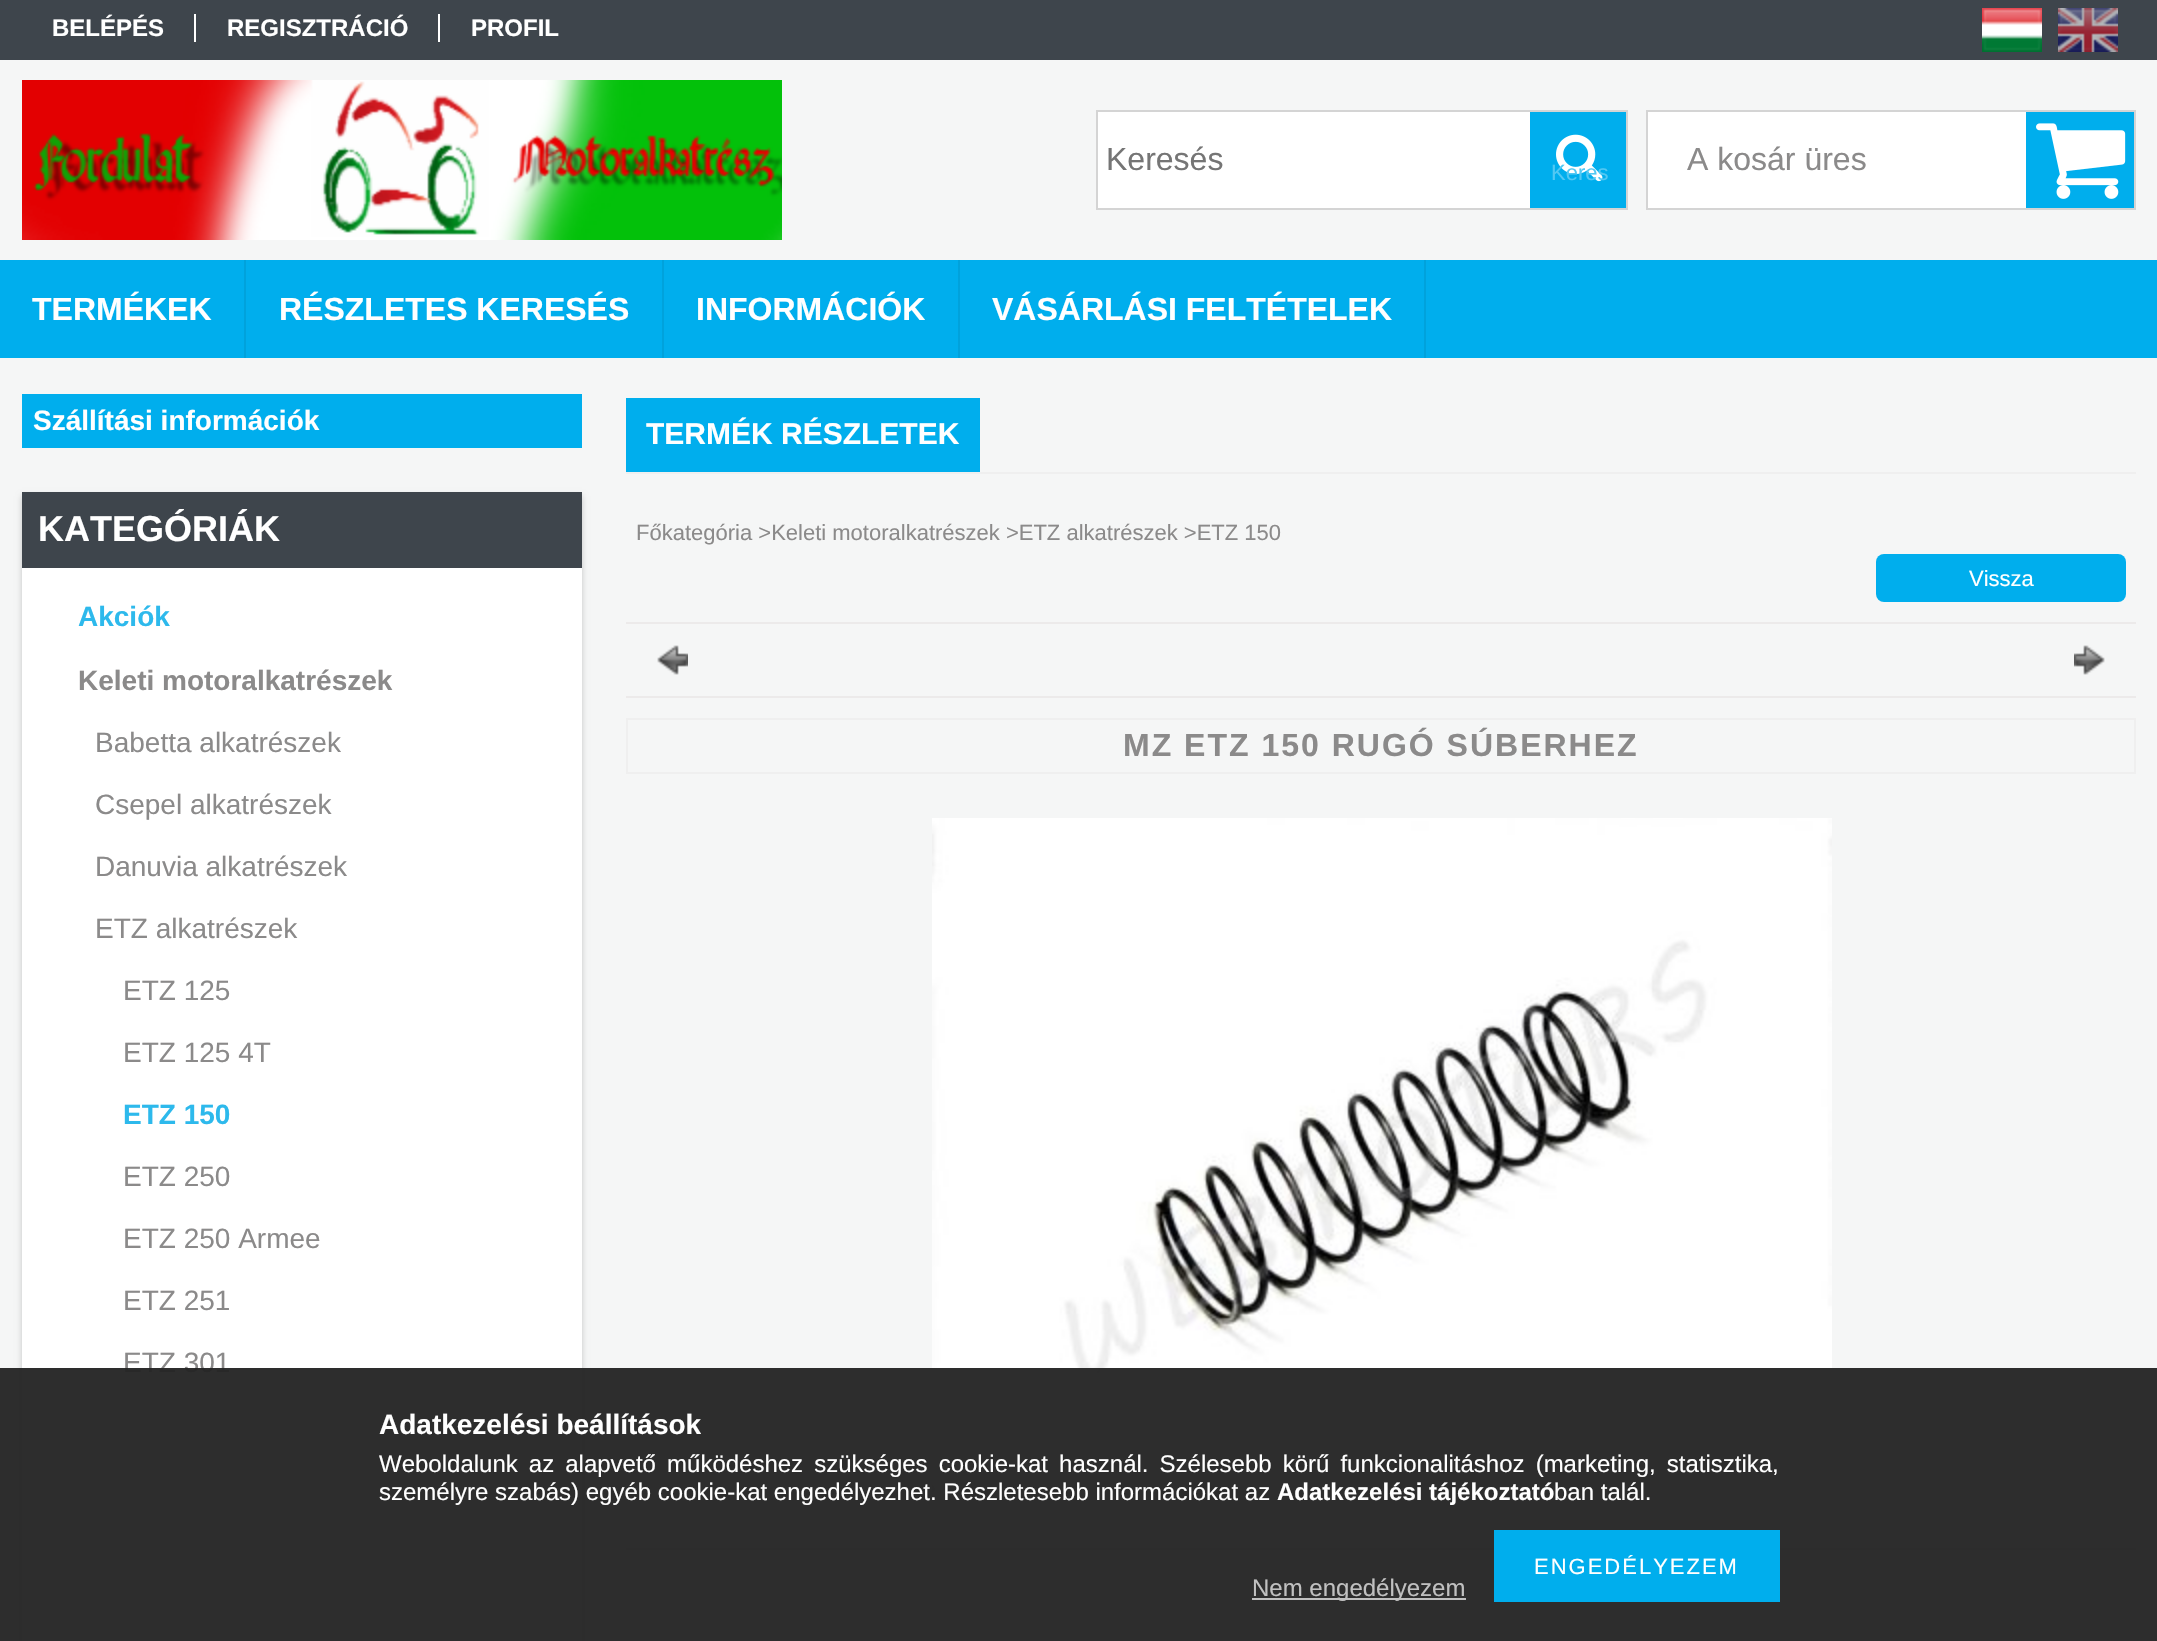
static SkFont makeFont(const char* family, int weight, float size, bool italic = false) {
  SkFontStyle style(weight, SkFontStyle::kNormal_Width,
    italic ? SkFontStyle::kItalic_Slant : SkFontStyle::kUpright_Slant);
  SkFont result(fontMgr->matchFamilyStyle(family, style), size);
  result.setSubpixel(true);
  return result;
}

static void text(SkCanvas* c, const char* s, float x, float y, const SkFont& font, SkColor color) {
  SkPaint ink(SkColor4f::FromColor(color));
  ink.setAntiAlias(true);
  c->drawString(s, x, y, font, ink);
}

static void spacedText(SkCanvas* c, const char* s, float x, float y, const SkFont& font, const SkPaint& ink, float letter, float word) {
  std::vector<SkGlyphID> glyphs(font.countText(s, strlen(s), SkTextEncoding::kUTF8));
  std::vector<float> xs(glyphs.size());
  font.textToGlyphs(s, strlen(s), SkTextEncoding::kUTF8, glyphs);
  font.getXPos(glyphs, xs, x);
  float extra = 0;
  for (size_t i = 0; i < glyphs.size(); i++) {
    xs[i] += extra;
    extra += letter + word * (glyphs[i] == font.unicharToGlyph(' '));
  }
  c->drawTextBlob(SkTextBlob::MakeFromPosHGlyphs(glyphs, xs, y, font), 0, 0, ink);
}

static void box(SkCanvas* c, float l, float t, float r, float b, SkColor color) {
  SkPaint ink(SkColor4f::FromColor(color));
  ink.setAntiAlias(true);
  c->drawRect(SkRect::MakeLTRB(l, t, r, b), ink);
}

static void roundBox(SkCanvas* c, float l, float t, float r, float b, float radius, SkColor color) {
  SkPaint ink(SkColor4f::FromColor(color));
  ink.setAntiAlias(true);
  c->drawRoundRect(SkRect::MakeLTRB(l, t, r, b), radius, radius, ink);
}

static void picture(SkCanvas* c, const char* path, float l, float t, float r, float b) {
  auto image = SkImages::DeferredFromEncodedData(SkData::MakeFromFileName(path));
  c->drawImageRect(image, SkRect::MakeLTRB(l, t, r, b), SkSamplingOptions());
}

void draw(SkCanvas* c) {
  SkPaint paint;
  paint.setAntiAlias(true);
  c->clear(0xfff5f6f6);
  box(c, 0, 0, 2157, 60, 0xff3e454c);
  SkFont face1 = makeFont("Liberation Sans", 700, 24);
  text(c, "BELÉPÉS", 52, 36, face1, 0xffffffff);
  box(c, 194, 14, 196, 42, 0xffffffff);
  text(c, "REGISZTRÁCIÓ", 227, 36, face1, 0xffffffff);
  box(c, 438, 14, 440, 42, 0xffffffff);
  text(c, "PROFIL", 471, 36, face1, 0xffffffff);
  picture(c, "img_01.png", 1982, 8, 2042, 52);
  picture(c, "img_02.png", 2058, 8, 2118, 52);
  picture(c, "img_03.png", 22, 80, 782, 240);
  box(c, 1098, 112, 1530, 208, 0xffffffff);
  paint.setStyle(SkPaint::kStroke_Style);
  paint.setStrokeWidth(2);
  paint.setColor(0xffd4d4d4);
  c->drawRect(SkRect::MakeLTRB(1097, 111, 1627, 209), paint);
  SkFont face2 = makeFont("Liberation Sans", 400, 32);
  text(c, "Keresés", 1106, 170, face2, 0xff757575);
  box(c, 1530, 112, 1626, 208, 0xff00aeed);
  picture(c, "img_04.png", 1556, 134, 1603, 182);
  SkFont face3 = makeFont("Liberation Sans", 400, 22);
  text(c, "Keres", 1551, 180, face3, 0xff52c8f3);
  box(c, 1648, 112, 2026, 208, 0xffffffff);
  c->drawRect(SkRect::MakeLTRB(1647, 111, 2135, 209), paint);
  text(c, "A kosár üres", 1687, 170, face2, 0xff8b8a8a);
  box(c, 2026, 112, 2134, 208, 0xff00aeed);
  picture(c, "img_05.png", 2036, 123, 2126, 199);
  box(c, 0, 260, 2157, 358, 0xff00aeed);
  box(c, 244, 260, 246, 358, 0xff00a2dc);
  SkFont face4 = makeFont("Liberation Sans", 700, 32);
  text(c, "TERMÉKEK", 32, 320, face4, 0xffffffff);
  box(c, 662, 260, 664, 358, 0xff00a2dc);
  text(c, "RÉSZLETES KERESÉS", 279, 320, face4, 0xffffffff);
  box(c, 958, 260, 960, 358, 0xff00a2dc);
  text(c, "INFORMÁCIÓK", 696, 320, face4, 0xffffffff);
  box(c, 1424, 260, 1426, 358, 0xff00a2dc);
  text(c, "VÁSÁRLÁSI FELTÉTELEK", 992, 320, face4, 0xffffffff);
  box(c, 22, 394, 582, 448, 0xff00aeed);
  SkFont face5 = makeFont("Liberation Sans", 700, 28);
  text(c, "Szállítási információk", 33, 430, face5, 0xffffffff);
  paint.setStyle(SkPaint::kFill_Style);
  paint.setColor(0x33000000);
  paint.setMaskFilter(SkMaskFilter::MakeBlur(kNormal_SkBlurStyle, 3));
  c->drawRect(SkRect::MakeLTRB(22, 496, 582, 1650), paint);
  paint.setMaskFilter(nullptr);
  box(c, 22, 492, 582, 568, 0xff3e454c);
  SkFont face6 = makeFont("Liberation Sans", 700, 36);
  text(c, "KATEGÓRIÁK", 38, 541, face6, 0xffffffff);
  box(c, 22, 568, 582, 1641, 0xffffffff);
  text(c, "Akciók", 78, 626, face5, 0xff2db9ec);
  text(c, "Keleti motoralkatrészek", 78, 690, face5, 0xff8b8a8a);
  SkFont face7 = makeFont("Liberation Sans", 400, 28);
  text(c, "Babetta alkatrészek", 95, 752, face7, 0xff8b8a8a);
  text(c, "Csepel alkatrészek", 95, 814, face7, 0xff8b8a8a);
  text(c, "Danuvia alkatrészek", 95, 876, face7, 0xff8b8a8a);
  text(c, "ETZ alkatrészek", 95, 938, face7, 0xff8b8a8a);
  text(c, "ETZ 125", 123, 1000, face7, 0xff8b8a8a);
  text(c, "ETZ 125 4T", 123, 1062, face7, 0xff8b8a8a);
  text(c, "ETZ 150", 123, 1124, face5, 0xff2db9ec);
  text(c, "ETZ 250", 123, 1186, face7, 0xff8b8a8a);
  text(c, "ETZ 250 Armee", 123, 1248, face7, 0xff8b8a8a);
  text(c, "ETZ 251", 123, 1310, face7, 0xff8b8a8a);
  text(c, "ETZ 301", 123, 1372, face7, 0xff8b8a8a);
  box(c, 626, 472, 2136, 474, 0xffefefef);
  box(c, 626, 398, 980, 472, 0xff00aeed);
  SkFont face8 = makeFont("Liberation Sans", 700, 30);
  text(c, "TERMÉK RÉSZLETEK", 646, 444, face8, 0xffffffff);
  text(c, "Főkategória >Keleti motoralkatrészek >ETZ alkatrészek >ETZ 150", 636, 540, face3, 0xff8b8a8a);
  roundBox(c, 1876, 554, 2126, 602, 8, 0xff00aeed);
  text(c, "Vissza", 1969, 586, face3, 0xffffffff);
  box(c, 626, 622, 2136, 624, 0xffeceaea);
  picture(c, "img_06.png", 657, 645, 688, 675);
  picture(c, "img_07.png", 2074, 645, 2105, 675);
  box(c, 626, 696, 2136, 698, 0xffeceaea);
  paint.setStyle(SkPaint::kStroke_Style);
  paint.setColor(0xffefefef);
  c->drawRect(SkRect::MakeLTRB(627, 719, 2135, 773), paint);
  paint.setStyle(SkPaint::kFill_Style);
  paint.setColor(0xff8b8a8a);
  spacedText(c, "MZ ETZ 150 RUGÓ SÚBERHEZ", 1123, 756, face4, paint, 2, 0);
  picture(c, "img_08.png", 932, 818, 1832, 1494);
  box(c, 626, 1548, 2136, 1550, 0xffeceaea);
  c->save();
  c->clipRect(SkRect::MakeLTRB(626, 506, 2136, 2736));
  paint.setStyle(SkPaint::kStroke_Style);
  paint.setColor(0xffefefef);
  c->drawRect(SkRect::MakeLTRB(627, 1571, 2139, 1623), paint);
  c->restore();
  box(c, 628, 1572, 1068, 1622, 0xffededed);
  box(c, 0, 1368, 2157, 1641, 0xf2222222);
  text(c, "Adatkezelési beállítások", 379, 1434, face5, 0xffffffff);
  SkFont face9 = makeFont("Liberation Sans", 400, 24);
  paint.setStyle(SkPaint::kFill_Style);
  paint.setColor(0xffffffff);
  spacedText(c, "Weboldalunk az alapvető működéshez szükséges cookie-kat használ. Szélesebb körű funkcionalitáshoz (marketing, statisztika,", 379, 1472, face9, paint, 0, 4.4f);
  text(c, "személyre szabás) egyéb cookie-kat engedélyezhet. Részletesebb információkat az", 379, 1500, face9, 0xffffffff);
  text(c, "Adatkezelési tájékoztató", 1277, 1500, face1, 0xffffffff);
  text(c, "ban talál.", 1554, 1500, face9, 0xffffffff);
  box(c, 1494, 1530, 1780, 1602, 0xff00aeed);
  spacedText(c, "ENGEDÉLYEZEM", 1534, 1574, face3, paint, 2, 0);
  box(c, 1252, 1598, 1466, 1600, 0xffc0c0c0);
  text(c, "Nem engedélyezem", 1252, 1596, face9, 0xffc0c0c0);
}
